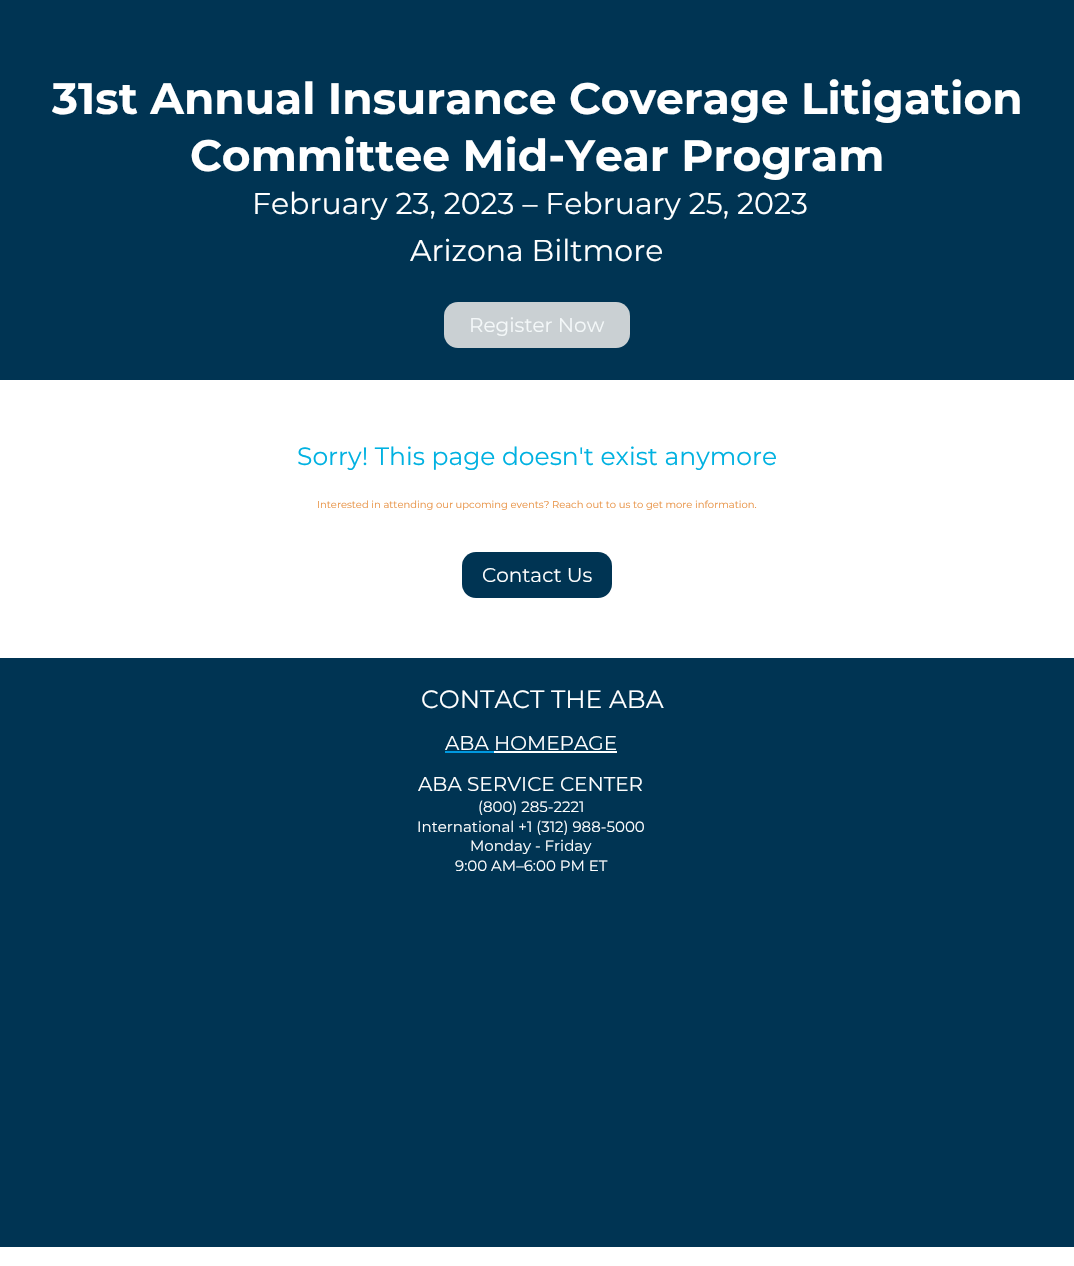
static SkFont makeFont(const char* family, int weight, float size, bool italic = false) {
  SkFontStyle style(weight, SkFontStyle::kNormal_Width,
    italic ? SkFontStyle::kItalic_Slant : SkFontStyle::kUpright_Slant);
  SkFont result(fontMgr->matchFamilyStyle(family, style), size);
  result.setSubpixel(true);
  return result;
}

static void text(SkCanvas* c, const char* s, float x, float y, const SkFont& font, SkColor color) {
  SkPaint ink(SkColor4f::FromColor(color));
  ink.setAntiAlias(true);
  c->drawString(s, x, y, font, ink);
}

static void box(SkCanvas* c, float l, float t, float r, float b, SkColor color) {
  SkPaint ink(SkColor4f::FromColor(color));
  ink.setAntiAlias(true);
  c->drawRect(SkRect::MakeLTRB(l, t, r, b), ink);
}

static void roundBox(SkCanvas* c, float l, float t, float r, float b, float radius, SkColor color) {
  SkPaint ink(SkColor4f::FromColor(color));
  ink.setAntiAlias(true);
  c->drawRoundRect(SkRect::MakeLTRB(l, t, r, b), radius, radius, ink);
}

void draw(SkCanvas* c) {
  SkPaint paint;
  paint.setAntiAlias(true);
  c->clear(0xffffffff);
  box(c, 0, 0, 1074, 1247, 0xff003453);
  SkFont face1 = makeFont("Montserrat", 700, 44);
  text(c, "31st Annual Insurance Coverage Litigation", 52, 114, face1, 0xffffffff);
  text(c, "Committee Mid-Year Program", 190, 171, face1, 0xffffffff);
  SkFont face2 = makeFont("Montserrat", 400, 30);
  text(c, "February 23, 2023 – February 25, 2023", 252, 214, face2, 0xffffffff);
  text(c, "Arizona Biltmore", 410, 261, face2, 0xffffffff);
  roundBox(c, 444, 302, 630, 348, 14, 0xffcad0d3);
  SkFont face3 = makeFont("Montserrat", 400, 20);
  text(c, "Register Now", 469, 332, face3, 0xfff4f8f9);
  box(c, 0, 380, 1074, 658, 0xffffffff);
  SkFont face4 = makeFont("Montserrat", 400, 25);
  text(c, "Sorry! This page doesn't exist anymore", 297, 465, face4, 0xff00b1e1);
  SkFont face5 = makeFont("Montserrat", 400, 10);
  text(c, "Interested in attending our upcoming events? Reach out to us to get more information.", 317, 508, face5, 0xffe89244);
  roundBox(c, 462, 552, 612, 598, 14, 0xff003453);
  text(c, "Contact Us", 482, 582, face3, 0xffffffff);
  text(c, "CONTACT THE ABA", 421, 708, face4, 0xffffffff);
  text(c, "ABA HOMEPAGE", 445, 750, face3, 0xffffffff);
  box(c, 445, 751, 494, 753, 0xff0099e0);
  box(c, 494, 751, 617, 753, 0xffffffff);
  text(c, "ABA SERVICE CENTER", 418, 791, face3, 0xffffffff);
  SkFont face6 = makeFont("Montserrat", 400, 15);
  text(c, "(800) 285-2221", 478, 812, face6, 0xffffffff);
  text(c, "International +1 (312) 988-5000", 417, 832, face6, 0xffffffff);
  text(c, "Monday - Friday", 470, 851, face6, 0xffffffff);
  text(c, "9:00 AM–6:00 PM ET", 455, 871, face6, 0xffffffff);
}
